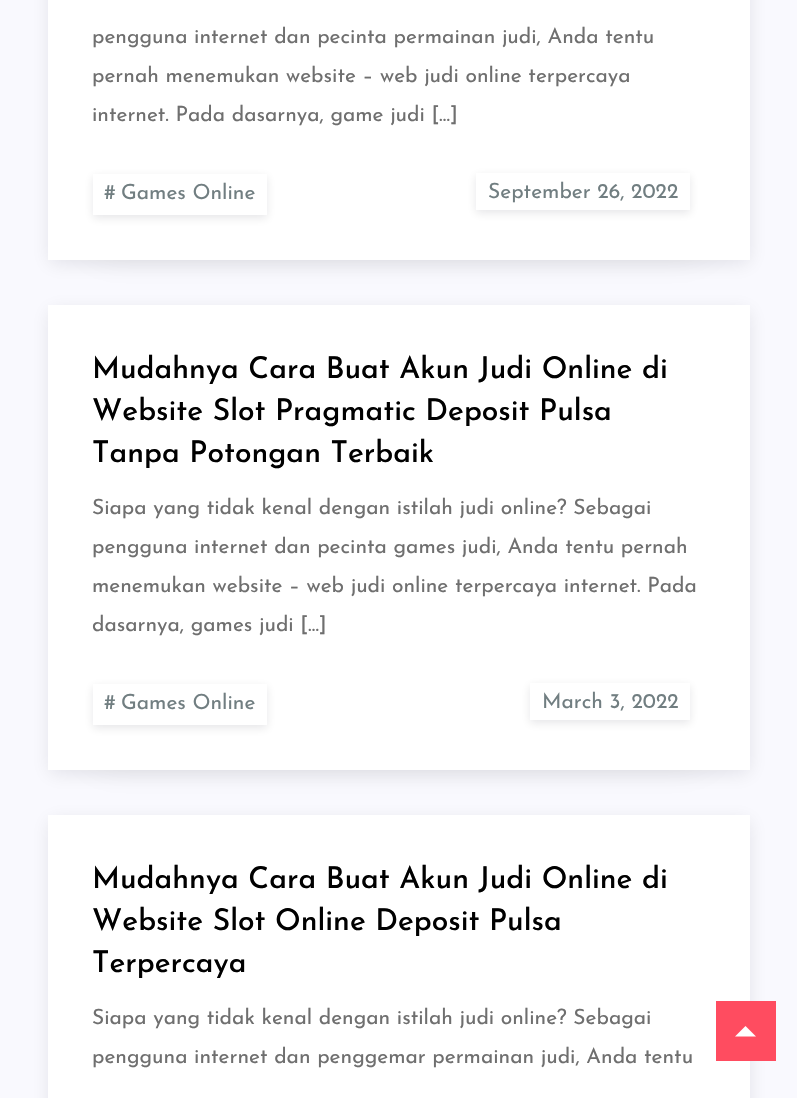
static SkFont makeFont(const char* family, int weight, float size, bool italic = false) {
  SkFontStyle style(weight, SkFontStyle::kNormal_Width,
    italic ? SkFontStyle::kItalic_Slant : SkFontStyle::kUpright_Slant);
  SkFont result(fontMgr->matchFamilyStyle(family, style), size);
  result.setSubpixel(true);
  return result;
}

static void text(SkCanvas* c, const char* s, float x, float y, const SkFont& font, SkColor color) {
  SkPaint ink(SkColor4f::FromColor(color));
  ink.setAntiAlias(true);
  c->drawString(s, x, y, font, ink);
}

static void box(SkCanvas* c, float l, float t, float r, float b, SkColor color) {
  SkPaint ink(SkColor4f::FromColor(color));
  ink.setAntiAlias(true);
  c->drawRect(SkRect::MakeLTRB(l, t, r, b), ink);
}

void draw(SkCanvas* c) {
  SkPaint paint;
  paint.setAntiAlias(true);
  c->clear(0xfff9f9fe);
  paint.setColor(0x1a070a19);
  paint.setMaskFilter(SkMaskFilter::MakeBlur(kNormal_SkBlurStyle, 20));
  c->drawRect(SkRect::MakeLTRB(93, -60, 705, 248), paint);
  paint.setMaskFilter(nullptr);
  paint.setMaskFilter(SkMaskFilter::MakeBlur(kNormal_SkBlurStyle, 9));
  c->drawRect(SkRect::MakeLTRB(50, -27, 749, 263), paint);
  paint.setMaskFilter(nullptr);
  box(c, 48, 0, 750, 260, 0xffffffff);
  SkFont face1 = makeFont("Josefin Sans", 400, 21);
  text(c, "pengguna internet dan pecinta permainan judi, Anda tentu", 92, 43, face1, 0xff6f6f6f);
  text(c, "pernah menemukan website – web judi online terpercaya", 92, 82, face1, 0xff6f6f6f);
  text(c, "internet. Pada dasarnya, game judi […]", 92, 121, face1, 0xff6f6f6f);
  paint.setMaskFilter(SkMaskFilter::MakeBlur(kNormal_SkBlurStyle, 4.5f));
  c->drawRect(SkRect::MakeLTRB(93, 177, 267, 218), paint);
  paint.setMaskFilter(nullptr);
  box(c, 93, 174, 267, 215, 0xffffffff);
  text(c, "#", 104, 199, face1, 0xff717e81);
  text(c, "Games Online", 121, 199, face1, 0xff717e81);
  c->save();
  c->clipPath(SkPathBuilder(SkPathFillType::kEvenOdd).moveTo(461, 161).lineTo(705, 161).lineTo(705, 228).lineTo(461, 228).close().moveTo(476, 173).lineTo(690, 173).lineTo(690, 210).lineTo(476, 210).close().detach(), true);
  paint.setMaskFilter(SkMaskFilter::MakeBlur(kNormal_SkBlurStyle, 4.5f));
  c->drawRect(SkRect::MakeLTRB(476, 176, 690, 213), paint);
  paint.setMaskFilter(nullptr);
  c->restore();
  text(c, "September 26, 2022", 488, 198, face1, 0xff717e81);
  paint.setMaskFilter(SkMaskFilter::MakeBlur(kNormal_SkBlurStyle, 20));
  c->drawRect(SkRect::MakeLTRB(93, 383, 705, 758), paint);
  paint.setMaskFilter(nullptr);
  paint.setMaskFilter(SkMaskFilter::MakeBlur(kNormal_SkBlurStyle, 9));
  c->drawRect(SkRect::MakeLTRB(50, 311, 749, 773), paint);
  paint.setMaskFilter(nullptr);
  box(c, 48, 305, 750, 770, 0xffffffff);
  SkFont face2 = makeFont("Josefin Sans", 500, 30);
  text(c, "Mudahnya Cara Buat Akun Judi Online di", 92, 378, face2, 0xff000000);
  text(c, "Website Slot Pragmatic Deposit Pulsa", 92, 420, face2, 0xff000000);
  text(c, "Tanpa Potongan Terbaik", 92, 462, face2, 0xff000000);
  text(c, "Siapa yang tidak kenal dengan istilah judi online? Sebagai", 92, 514, face1, 0xff6f6f6f);
  text(c, "pengguna internet dan pecinta games judi, Anda tentu pernah", 92, 553, face1, 0xff6f6f6f);
  text(c, "menemukan website – web judi online terpercaya internet. Pada", 92, 592, face1, 0xff6f6f6f);
  text(c, "dasarnya, games judi […]", 92, 631, face1, 0xff6f6f6f);
  paint.setMaskFilter(SkMaskFilter::MakeBlur(kNormal_SkBlurStyle, 4.5f));
  c->drawRect(SkRect::MakeLTRB(93, 687, 267, 728), paint);
  paint.setMaskFilter(nullptr);
  box(c, 93, 684, 267, 725, 0xffffffff);
  text(c, "#", 104, 709, face1, 0xff717e81);
  text(c, "Games Online", 121, 709, face1, 0xff717e81);
  c->save();
  c->clipPath(SkPathBuilder(SkPathFillType::kEvenOdd).moveTo(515, 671).lineTo(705, 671).lineTo(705, 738).lineTo(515, 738).close().moveTo(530, 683).lineTo(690, 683).lineTo(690, 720).lineTo(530, 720).close().detach(), true);
  paint.setMaskFilter(SkMaskFilter::MakeBlur(kNormal_SkBlurStyle, 4.5f));
  c->drawRect(SkRect::MakeLTRB(530, 686, 690, 723), paint);
  paint.setMaskFilter(nullptr);
  c->restore();
  text(c, "March 3, 2022", 542, 708, face1, 0xff717e81);
  paint.setMaskFilter(SkMaskFilter::MakeBlur(kNormal_SkBlurStyle, 9));
  c->drawRect(SkRect::MakeLTRB(50, 821, 749, 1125), paint);
  paint.setMaskFilter(nullptr);
  box(c, 48, 815, 750, 1098, 0xffffffff);
  text(c, "Mudahnya Cara Buat Akun Judi Online di", 92, 888, face2, 0xff000000);
  text(c, "Website Slot Online Deposit Pulsa", 92, 930, face2, 0xff000000);
  text(c, "Terpercaya", 92, 972, face2, 0xff000000);
  text(c, "Siapa yang tidak kenal dengan istilah judi online? Sebagai", 92, 1024, face1, 0xff6f6f6f);
  text(c, "pengguna internet dan penggemar permainan judi, Anda tentu", 92, 1063, face1, 0xff6f6f6f);
  box(c, 716, 1001, 776, 1061, 0xffff4c60);
  paint.setColor(0xffffffff);
  c->drawPath(SkPathBuilder().moveTo(756, 1036.5f).lineTo(735, 1036.5f).lineTo(745.5f, 1026).close().detach(), paint);
}
